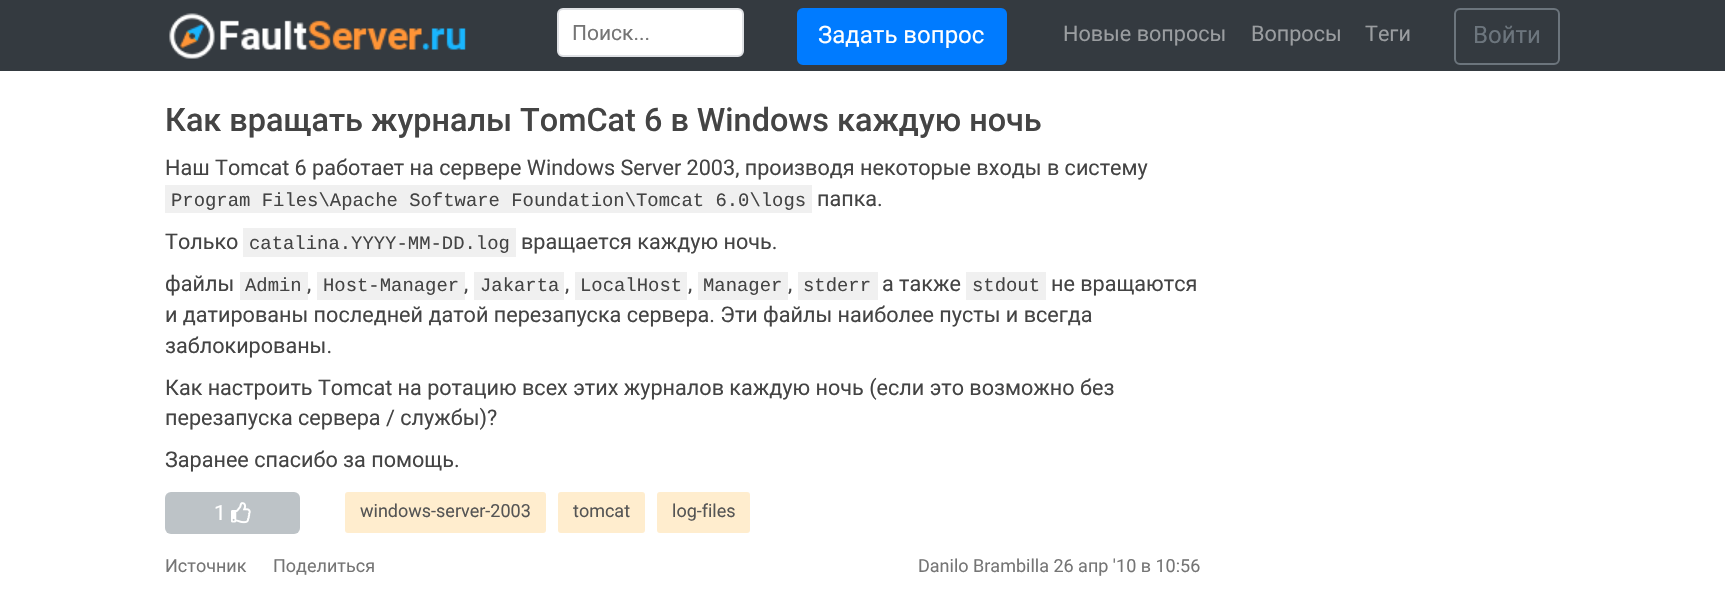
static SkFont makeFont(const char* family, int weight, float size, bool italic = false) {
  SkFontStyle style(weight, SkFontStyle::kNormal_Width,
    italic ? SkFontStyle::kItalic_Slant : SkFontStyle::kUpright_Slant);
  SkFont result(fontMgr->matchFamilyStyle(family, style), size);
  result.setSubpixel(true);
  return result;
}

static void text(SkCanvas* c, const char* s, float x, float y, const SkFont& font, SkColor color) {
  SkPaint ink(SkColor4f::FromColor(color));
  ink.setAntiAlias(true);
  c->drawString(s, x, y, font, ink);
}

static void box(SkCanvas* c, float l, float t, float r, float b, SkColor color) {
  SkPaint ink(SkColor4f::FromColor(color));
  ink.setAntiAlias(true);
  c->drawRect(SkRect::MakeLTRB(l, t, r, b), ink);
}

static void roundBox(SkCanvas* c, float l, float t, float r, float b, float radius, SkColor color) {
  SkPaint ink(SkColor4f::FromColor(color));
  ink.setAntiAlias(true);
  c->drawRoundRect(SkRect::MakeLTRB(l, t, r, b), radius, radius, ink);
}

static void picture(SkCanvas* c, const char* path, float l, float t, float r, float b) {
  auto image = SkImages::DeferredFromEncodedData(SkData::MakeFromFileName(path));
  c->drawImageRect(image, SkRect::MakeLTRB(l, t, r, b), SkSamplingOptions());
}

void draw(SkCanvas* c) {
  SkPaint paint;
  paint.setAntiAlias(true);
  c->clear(0xffffffff);
  box(c, 0, 0, 1725, 71, 0xff343a40);
  picture(c, "img_01.png", 169, 13, 466, 59);
  paint.setColor(0xffffffff);
  c->drawRoundRect(SkRect::MakeLTRB(558, 9, 743, 56), 5, 5, paint);
  paint.setStyle(SkPaint::kStroke_Style);
  paint.setStrokeWidth(2);
  paint.setColor(0xffdfe1e5);
  c->drawRoundRect(SkRect::MakeLTRB(558, 9, 743, 56), 5, 5, paint);
  SkFont face1 = makeFont("Roboto", 400, 21);
  text(c, "Поиск...", 572, 40, face1, 0xff757575);
  paint.setStyle(SkPaint::kFill_Style);
  paint.setColor(0xff007bff);
  c->drawRoundRect(SkRect::MakeLTRB(798, 9, 1006, 64), 5, 5, paint);
  paint.setStyle(SkPaint::kStroke_Style);
  c->drawRoundRect(SkRect::MakeLTRB(798, 9, 1006, 64), 5, 5, paint);
  SkFont face2 = makeFont("Roboto", 400, 24);
  text(c, "Задать вопрос", 818, 43, face2, 0xffffffff);
  SkFont face3 = makeFont("Roboto", 400, 21.6f);
  text(c, "Новые вопросы", 1063, 41, face3, 0xff9a9da0);
  text(c, "Вопросы", 1251, 41, face3, 0xff9a9da0);
  text(c, "Теги", 1365, 41, face3, 0xff9a9da0);
  paint.setColor(0xff6c757d);
  c->drawRoundRect(SkRect::MakeLTRB(1455, 9, 1559, 64), 5, 5, paint);
  text(c, "Войти", 1473, 43, face2, 0xff6c757d);
  SkFont face4 = makeFont("Roboto", 500, 32.4f);
  text(c, "Как вращать журналы TomCat 6 в Windows каждую ночь", 165, 131, face4, 0xff444444);
  text(c, "Наш Tomcat 6 работает на сервере Windows Server 2003, производя некоторые входы в систему", 165, 175, face3, 0xff444444);
  box(c, 165, 185, 812, 213, 0xfff0f0f0);
  SkFont face5 = makeFont("Liberation Mono", 400, 18.9f);
  text(c, "Program Files\\Apache Software Foundation\\Tomcat 6.0\\logs", 171, 206, face5, 0xff444444);
  text(c, "папка.", 817, 206, face3, 0xff444444);
  text(c, "Только", 165, 249, face3, 0xff444444);
  box(c, 243, 228, 516, 257, 0xfff0f0f0);
  text(c, "catalina.YYYY-MM-DD.log", 249, 249, face5, 0xff444444);
  text(c, "вращается каждую ночь.", 521, 249, face3, 0xff444444);
  text(c, "файлы", 165, 291, face3, 0xff444444);
  box(c, 240, 272, 308, 300, 0xfff0f0f0);
  text(c, "Admin", 245, 291, face5, 0xff444444);
  text(c, ",", 307, 291, face3, 0xff444444);
  box(c, 317, 272, 465, 300, 0xfff0f0f0);
  text(c, "Host-Manager", 323, 291, face5, 0xff444444);
  text(c, ",", 464, 291, face3, 0xff444444);
  box(c, 474, 272, 564, 300, 0xfff0f0f0);
  text(c, "Jakarta", 480, 291, face5, 0xff444444);
  text(c, ",", 565, 291, face3, 0xff444444);
  box(c, 575, 272, 687, 300, 0xfff0f0f0);
  text(c, "LocalHost", 580, 291, face5, 0xff444444);
  text(c, ",", 688, 291, face3, 0xff444444);
  box(c, 698, 272, 788, 300, 0xfff0f0f0);
  text(c, "Manager", 703, 291, face5, 0xff444444);
  text(c, ",", 788, 291, face3, 0xff444444);
  box(c, 798, 272, 878, 300, 0xfff0f0f0);
  text(c, "stderr", 803, 291, face5, 0xff444444);
  text(c, "а также", 882, 291, face3, 0xff444444);
  box(c, 966, 272, 1046, 300, 0xfff0f0f0);
  text(c, "stdout", 972, 291, face5, 0xff444444);
  text(c, "не вращаются", 1051, 291, face3, 0xff444444);
  text(c, "и датированы последней датой перезапуска сервера. Эти файлы наиболее пусты и всегда", 165, 322, face3, 0xff444444);
  text(c, "заблокированы.", 165, 353, face3, 0xff444444);
  text(c, "Как настроить Tomcat на ротацию всех этих журналов каждую ночь (если это возможно без", 165, 395, face3, 0xff444444);
  text(c, "перезапуска сервера / службы)?", 165, 425, face3, 0xff444444);
  text(c, "Заранее спасибо за помощь.", 165, 467, face3, 0xff444444);
  roundBox(c, 165, 492, 300, 534, 6, 0xffbdc3c7);
  text(c, "1", 214, 520, face1, 0xffffffff);
  picture(c, "img_02.png", 231, 502, 251, 524);
  roundBox(c, 345, 492, 546, 533, 3, 0xffffedce);
  SkFont face6 = makeFont("Roboto", 400, 18);
  text(c, "windows-server-2003", 360, 517, face6, 0xff555555);
  roundBox(c, 558, 492, 645, 533, 3, 0xffffedce);
  text(c, "tomcat", 573, 517, face6, 0xff555555);
  roundBox(c, 657, 492, 750, 533, 3, 0xffffedce);
  text(c, "log-files", 672, 517, face6, 0xff555555);
  text(c, "Источник", 165, 572, face6, 0xff757575);
  text(c, "Поделиться", 273, 572, face6, 0xff757575);
  text(c, "Danilo Brambilla 26 апр '10 в 10:56", 918, 572, face6, 0xff757575);
}
